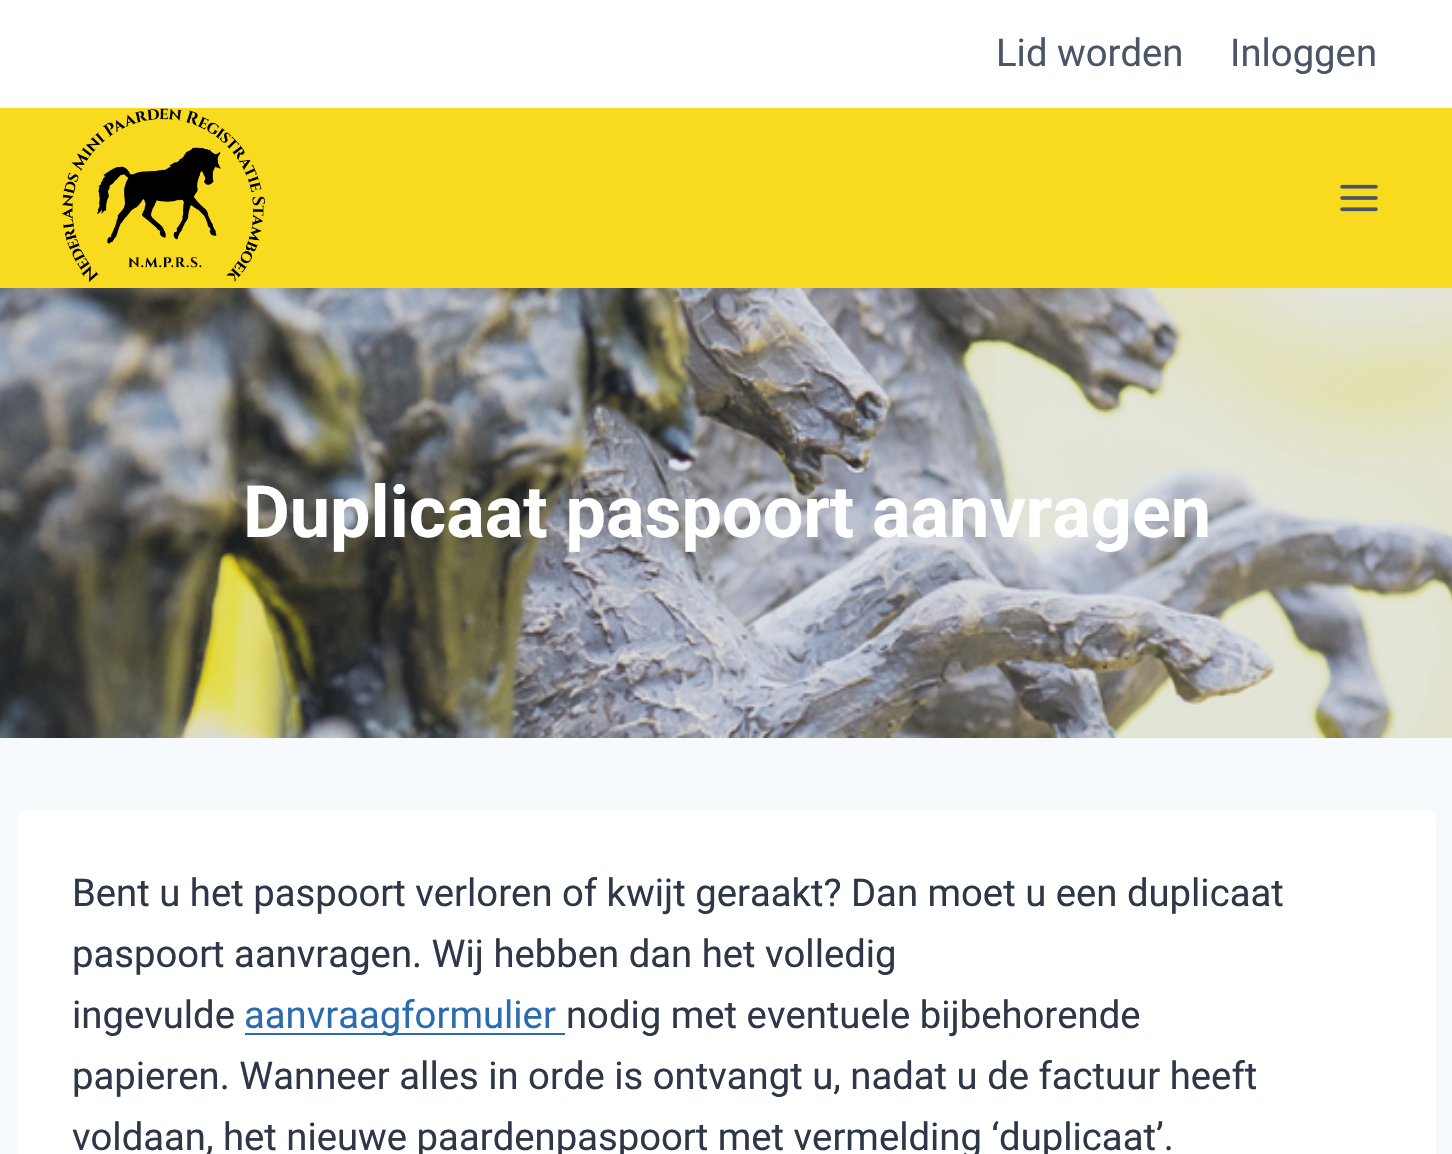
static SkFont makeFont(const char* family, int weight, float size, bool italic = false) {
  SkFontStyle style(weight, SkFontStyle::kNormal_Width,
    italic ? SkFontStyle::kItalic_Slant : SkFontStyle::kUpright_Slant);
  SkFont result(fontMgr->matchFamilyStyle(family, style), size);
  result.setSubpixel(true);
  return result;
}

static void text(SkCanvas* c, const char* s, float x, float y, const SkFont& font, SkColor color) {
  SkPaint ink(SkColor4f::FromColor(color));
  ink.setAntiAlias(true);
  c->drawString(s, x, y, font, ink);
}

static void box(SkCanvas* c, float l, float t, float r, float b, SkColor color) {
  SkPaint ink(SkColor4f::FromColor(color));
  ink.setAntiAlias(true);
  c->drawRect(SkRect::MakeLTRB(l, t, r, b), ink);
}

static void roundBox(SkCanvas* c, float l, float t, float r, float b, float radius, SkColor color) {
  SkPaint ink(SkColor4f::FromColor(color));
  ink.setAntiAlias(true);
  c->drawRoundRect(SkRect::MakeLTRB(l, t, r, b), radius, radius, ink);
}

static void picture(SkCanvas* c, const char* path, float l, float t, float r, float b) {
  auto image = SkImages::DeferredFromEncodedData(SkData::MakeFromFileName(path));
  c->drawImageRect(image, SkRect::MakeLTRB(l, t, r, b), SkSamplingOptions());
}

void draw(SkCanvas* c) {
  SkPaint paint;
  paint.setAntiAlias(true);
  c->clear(0xfff7fafc);
  box(c, 0, 0, 1452, 108, 0xffffffff);
  SkFont face1 = makeFont("Roboto", 400, 38.25f);
  text(c, "Lid worden", 996, 66, face1, 0xff4a5568);
  text(c, "Inloggen", 1230, 66, face1, 0xff4a5568);
  box(c, 0, 108, 1452, 288, 0xfff8db1f);
  picture(c, "img_01.png", 62, 108, 265, 283);
  picture(c, "img_02.png", 1340, 184, 1378, 212);
  picture(c, "img_03.png", 0, 288, 1452, 738);
  SkFont face2 = makeFont("Roboto", 700, 72);
  text(c, "Duplicaat paspoort aanvragen", 243, 537, face2, 0xffffffff);
  roundBox(c, 18, 810, 1436, 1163, 9, 0xffffffff);
  text(c, "Bent u het paspoort verloren of kwijt geraakt? Dan moet u een duplicaat", 72, 906, face1, 0xff2d3748);
  text(c, "paspoort aanvragen. Wij hebben dan het volledig", 72, 967, face1, 0xff2d3748);
  text(c, "ingevulde", 72, 1028, face1, 0xff2d3748);
  box(c, 245, 1033, 565, 1035, 0xff2b6cb0);
  text(c, "aanvraagformulier", 244, 1028, face1, 0xff2b6cb0);
  text(c, "nodig met eventuele bijbehorende", 566, 1028, face1, 0xff2d3748);
  text(c, "papieren. Wanneer alles in orde is ontvangt u, nadat u de factuur heeft", 72, 1089, face1, 0xff2d3748);
  text(c, "voldaan, het nieuwe paardenpaspoort met vermelding ‘duplicaat’.", 72, 1150, face1, 0xff2d3748);
}
